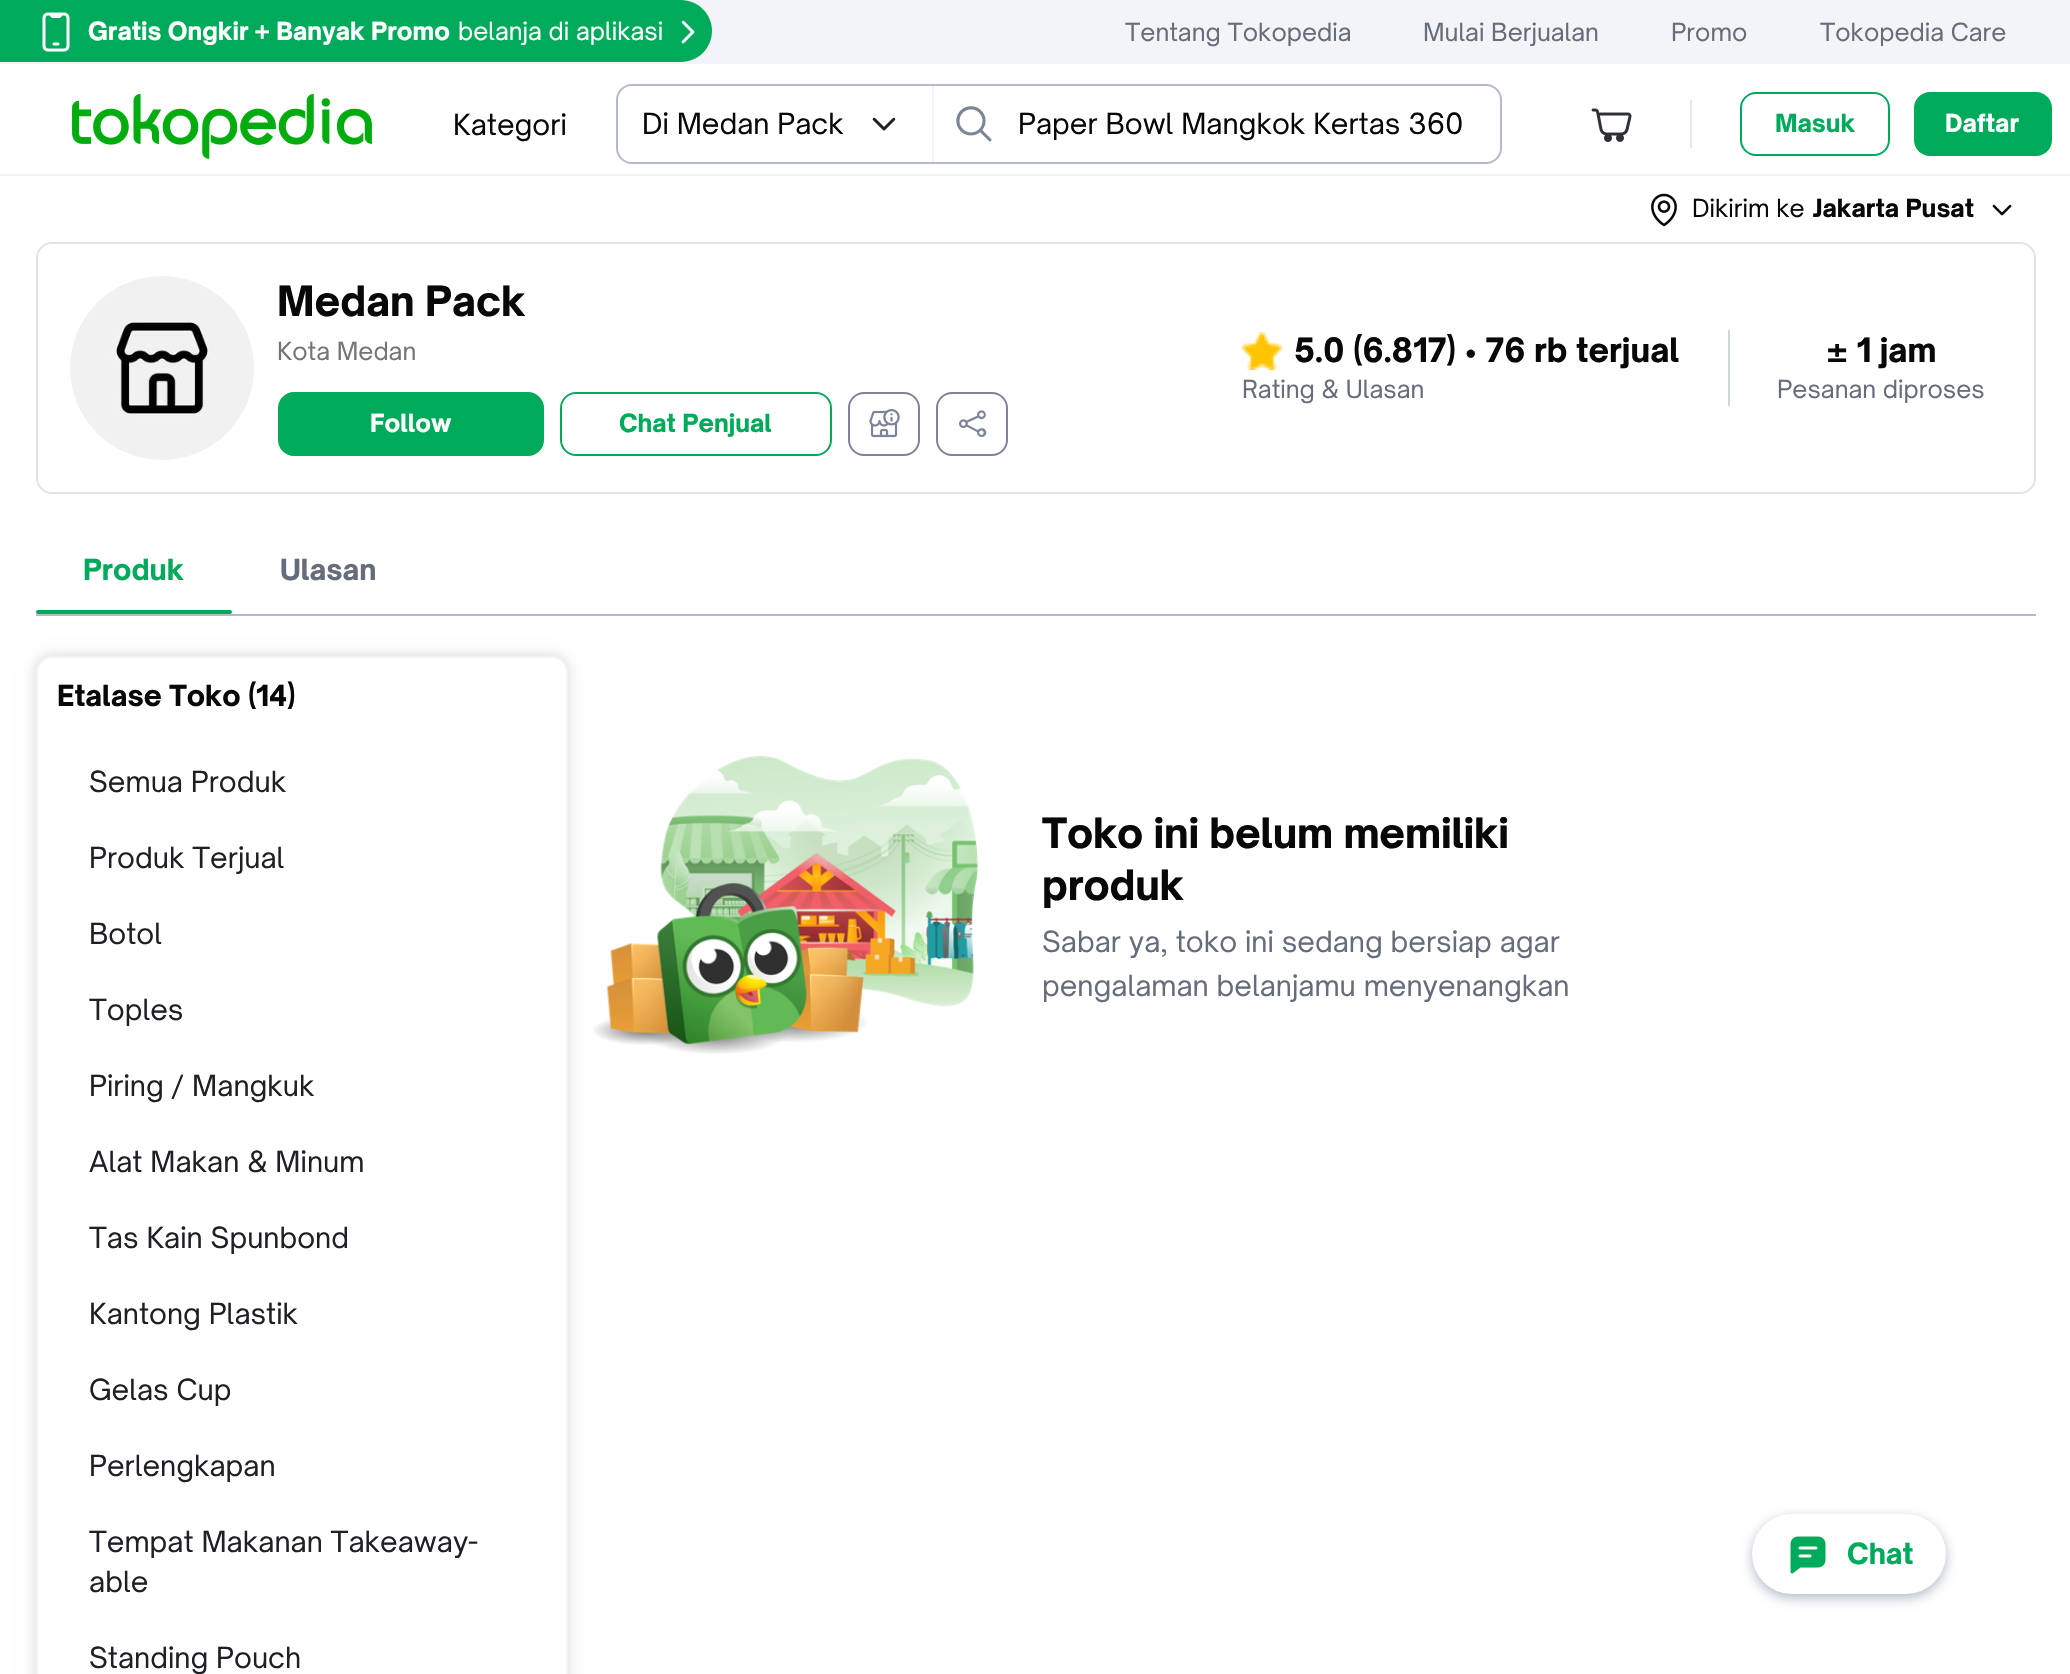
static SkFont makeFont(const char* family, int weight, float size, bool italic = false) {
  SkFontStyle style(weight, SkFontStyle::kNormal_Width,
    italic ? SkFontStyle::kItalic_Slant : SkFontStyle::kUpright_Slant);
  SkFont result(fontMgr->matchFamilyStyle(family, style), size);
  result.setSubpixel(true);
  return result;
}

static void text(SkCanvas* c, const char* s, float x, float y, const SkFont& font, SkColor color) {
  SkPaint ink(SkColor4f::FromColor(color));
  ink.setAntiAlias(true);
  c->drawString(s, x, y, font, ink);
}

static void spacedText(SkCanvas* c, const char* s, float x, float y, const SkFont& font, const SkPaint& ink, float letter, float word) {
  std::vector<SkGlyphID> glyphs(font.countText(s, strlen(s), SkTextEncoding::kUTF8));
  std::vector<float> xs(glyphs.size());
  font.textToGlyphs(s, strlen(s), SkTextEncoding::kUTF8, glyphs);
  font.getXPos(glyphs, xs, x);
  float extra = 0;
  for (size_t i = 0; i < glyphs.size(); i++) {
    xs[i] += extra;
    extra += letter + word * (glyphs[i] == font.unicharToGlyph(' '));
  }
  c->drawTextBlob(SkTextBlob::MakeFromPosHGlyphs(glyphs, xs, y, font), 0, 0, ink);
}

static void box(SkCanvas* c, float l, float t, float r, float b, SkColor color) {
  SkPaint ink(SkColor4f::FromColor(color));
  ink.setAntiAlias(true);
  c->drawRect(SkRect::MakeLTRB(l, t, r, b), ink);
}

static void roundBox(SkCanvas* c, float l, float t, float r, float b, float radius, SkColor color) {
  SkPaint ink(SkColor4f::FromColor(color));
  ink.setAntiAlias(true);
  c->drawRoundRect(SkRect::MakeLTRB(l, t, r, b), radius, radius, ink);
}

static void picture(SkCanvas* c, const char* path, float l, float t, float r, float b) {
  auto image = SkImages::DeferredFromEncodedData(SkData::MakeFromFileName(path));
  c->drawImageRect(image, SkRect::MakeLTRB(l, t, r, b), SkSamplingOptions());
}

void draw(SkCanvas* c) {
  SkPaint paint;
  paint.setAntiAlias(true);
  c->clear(0xffffffff);
  box(c, 0, 174, 2070, 176, 0xfff2f4f7);
  box(c, 0, 0, 2070, 64, 0xfff2f4f7);
  paint.setColor(0xff00aa5b);
  c->drawPath(SkPathBuilder().moveTo(0, 0).lineTo(681, 0).cubicTo(698, 0, 712, 14, 712, 31).cubicTo(712, 48, 698, 62, 681, 62).lineTo(0, 62).close().detach(), paint);
  picture(c, "img_01.png", 42, 12, 70, 52);
  SkFont face1 = makeFont("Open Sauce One", 800, 24);
  text(c, "Gratis Ongkir + Banyak Promo", 88, 40, face1, 0xffffffff);
  SkFont face2 = makeFont("Open Sauce One", 400, 24);
  text(c, "belanja di aplikasi", 458, 40, face2, 0xffffffff);
  picture(c, "img_02.png", 681, 20, 695, 44);
  text(c, "Tentang Tokopedia", 1125, 41, face2, 0xff656c7b);
  text(c, "Mulai Berjualan", 1423, 41, face2, 0xff656c7b);
  text(c, "Promo", 1671, 41, face2, 0xff656c7b);
  text(c, "Tokopedia Care", 1820, 41, face2, 0xff656c7b);
  picture(c, "img_03.png", 72, 94, 372, 159);
  SkFont face3 = makeFont("Open Sauce One", 400, 28);
  text(c, "Kategori", 453, 135, face3, 0xff080808);
  paint.setStyle(SkPaint::kStroke_Style);
  paint.setStrokeWidth(2);
  paint.setColor(0xffb3bbc9);
  c->drawRoundRect(SkRect::MakeLTRB(617, 85, 1501, 163), 15, 15, paint);
  paint.setStyle(SkPaint::kFill_Style);
  paint.setColor(0xffffffff);
  c->drawPath(SkPathBuilder().moveTo(634, 86).lineTo(934, 86).lineTo(934, 162).lineTo(634, 162).cubicTo(625, 162, 618, 155, 618, 146).lineTo(618, 102).cubicTo(618, 93, 625, 86, 634, 86).close().detach(), paint);
  box(c, 932, 86, 934, 162, 0xfff2f4f7);
  text(c, "Di Medan Pack", 642, 134, face3, 0xff080808);
  picture(c, "img_04.png", 872, 117, 896, 131);
  roundBox(c, 934, 86, 1500, 162, 16, 0xffffffff);
  picture(c, "img_05.png", 956, 106, 992, 142);
  text(c, "Paper Bowl Mangkok Kertas 360", 1018, 134, face3, 0xff080808);
  picture(c, "img_06.png", 1591, 108, 1632, 142);
  box(c, 1690, 100, 1692, 148, 0xffe6e9f0);
  paint.setStyle(SkPaint::kStroke_Style);
  paint.setColor(0xff00aa5b);
  c->drawRoundRect(SkRect::MakeLTRB(1741, 93, 1889, 155), 15, 15, paint);
  text(c, "Masuk", 1775, 132, face1, 0xff00aa5b);
  roundBox(c, 1914, 92, 2052, 156, 16, 0xff00aa5b);
  text(c, "Daftar", 1945, 132, face1, 0xffffffff);
  picture(c, "img_07.png", 1651, 193, 1677, 227);
  text(c, "Dikirim ke", 1692, 217, face2, 0xff080808);
  text(c, "Jakarta Pusat", 1813, 217, face1, 0xff080808);
  picture(c, "img_08.png", 1992, 204, 2012, 216);
  paint.setColor(0xffe4e4e5);
  c->drawRoundRect(SkRect::MakeLTRB(37, 243, 2035, 493), 15, 15, paint);
  picture(c, "img_09.png", 70, 276, 254, 460);
  SkFont face4 = makeFont("Open Sauce One", 800, 40);
  text(c, "Medan Pack", 277, 316, face4, 0xff080808);
  text(c, "Kota Medan", 277, 360, face2, 0xff757575);
  roundBox(c, 278, 392, 544, 456, 16, 0xff00aa5b);
  text(c, "Follow", 370, 432, face1, 0xffffffff);
  paint.setColor(0xff00aa5b);
  c->drawRoundRect(SkRect::MakeLTRB(561, 393, 831, 455), 15, 15, paint);
  text(c, "Chat Penjual", 619, 432, face1, 0xff00aa5b);
  paint.setColor(0xff7c8597);
  c->drawRoundRect(SkRect::MakeLTRB(849, 393, 919, 455), 15, 15, paint);
  picture(c, "img_10.png", 869, 409, 900, 438);
  c->drawRoundRect(SkRect::MakeLTRB(937, 393, 1007, 455), 15, 15, paint);
  picture(c, "img_11.png", 959, 410, 987, 437);
  picture(c, "img_12.png", 1242, 332, 1282, 370);
  SkFont face5 = makeFont("Open Sauce One", 800, 32);
  text(c, "5.0 (6.817) • 76 rb terjual", 1294, 362, face5, 0xff080808);
  text(c, "Rating & Ulasan", 1242, 398, face2, 0xff656c7b);
  box(c, 1728, 330, 1730, 406, 0xffcfd5e1);
  text(c, "± 1 jam", 1826, 362, face5, 0xff080808);
  text(c, "Pesanan diproses", 1777, 398, face2, 0xff656c7b);
  box(c, 36, 614, 2036, 616, 0xffb3bbc9);
  SkFont face6 = makeFont("Open Sauce One", 800, 28);
  text(c, "Produk", 83, 580, face6, 0xff00aa5b);
  text(c, "Ulasan", 280, 580, face6, 0xff656c7b);
  roundBox(c, 36, 610, 232, 614, 2, 0xff00aa5b);
  paint.setStyle(SkPaint::kFill_Style);
  paint.setColor(0x17000000);
  paint.setMaskFilter(SkMaskFilter::MakeBlur(kNormal_SkBlurStyle, 5));
  c->drawRoundRect(SkRect::MakeLTRB(36, 654, 568, 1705), 16, 16, paint);
  paint.setMaskFilter(nullptr);
  picture(c, "img_13.png", 593, 755, 978, 1054);
  paint.setColor(0x12000000);
  paint.setMaskFilter(SkMaskFilter::MakeBlur(kNormal_SkBlurStyle, 10));
  c->drawRoundRect(SkRect::MakeLTRB(36, 660, 568, 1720), 16, 16, paint);
  paint.setMaskFilter(nullptr);
  paint.setColor(0xffffffff);
  c->drawRoundRect(SkRect::MakeLTRB(37, 657, 567, 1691), 15, 15, paint);
  paint.setStyle(SkPaint::kStroke_Style);
  paint.setColor(0xfff2f4f7);
  c->drawRoundRect(SkRect::MakeLTRB(37, 657, 567, 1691), 15, 15, paint);
  text(c, "Etalase Toko (14)", 57, 706, face6, 0xff080808);
  text(c, "Semua Produk", 89, 792, face3, 0xff1e2025);
  text(c, "Produk Terjual", 89, 868, face3, 0xff1e2025);
  text(c, "Botol", 89, 944, face3, 0xff1e2025);
  text(c, "Toples", 89, 1020, face3, 0xff1e2025);
  text(c, "Piring / Mangkuk", 89, 1096, face3, 0xff1e2025);
  text(c, "Alat Makan & Minum", 89, 1172, face3, 0xff1e2025);
  text(c, "Tas Kain Spunbond", 89, 1248, face3, 0xff1e2025);
  text(c, "Kantong Plastik", 89, 1324, face3, 0xff1e2025);
  text(c, "Gelas Cup", 89, 1400, face3, 0xff1e2025);
  text(c, "Perlengkapan", 89, 1476, face3, 0xff1e2025);
  text(c, "Tempat Makanan Takeaway-", 89, 1552, face3, 0xff1e2025);
  text(c, "able", 89, 1592, face3, 0xff1e2025);
  text(c, "Standing Pouch", 89, 1668, face3, 0xff1e2025);
  paint.setStyle(SkPaint::kFill_Style);
  paint.setColor(0xff080808);
  spacedText(c, "Toko ini belum memiliki", 1042, 848, face4, paint, -0.2f, 0);
  spacedText(c, "produk", 1042, 900, face4, paint, -0.2f, 0);
  text(c, "Sabar ya, toko ini sedang bersiap agar", 1042, 952, face3, 0xff656c7b);
  text(c, "pengalaman belanjamu menyenangkan", 1042, 996, face3, 0xff656c7b);
  paint.setColor(0xffb3bbc9);
  paint.setMaskFilter(SkMaskFilter::MakeBlur(kNormal_SkBlurStyle, 6));
  c->drawRoundRect(SkRect::MakeLTRB(1752, 1518, 1946, 1598), 40, 40, paint);
  paint.setMaskFilter(nullptr);
  roundBox(c, 1752, 1514, 1946, 1594, 40, 0xffffffff);
  picture(c, "img_14.png", 1790, 1536, 1826, 1574);
  text(c, "Chat", 1847, 1564, face6, 0xff00aa5b);
}
